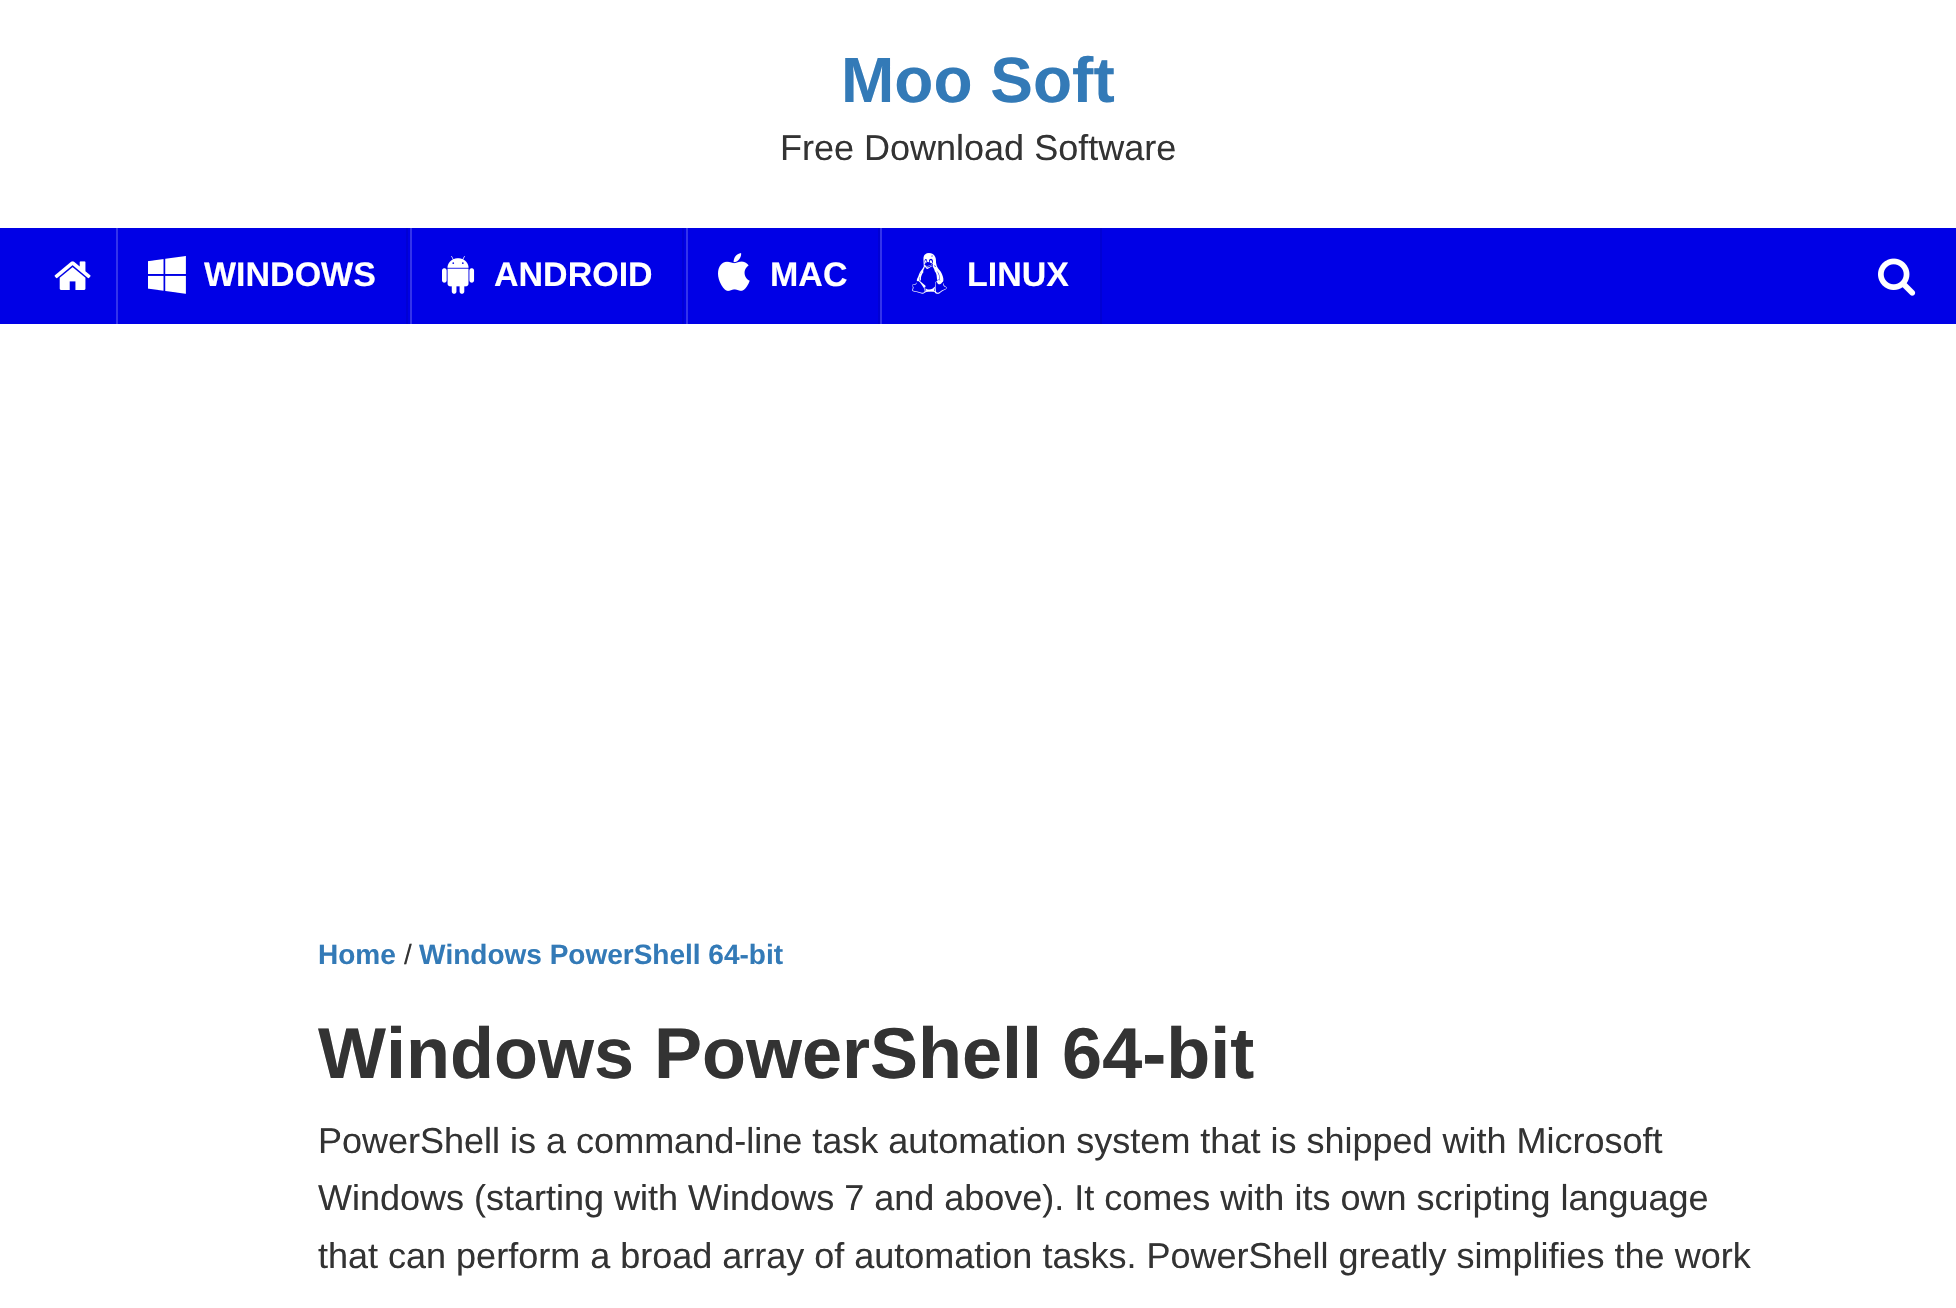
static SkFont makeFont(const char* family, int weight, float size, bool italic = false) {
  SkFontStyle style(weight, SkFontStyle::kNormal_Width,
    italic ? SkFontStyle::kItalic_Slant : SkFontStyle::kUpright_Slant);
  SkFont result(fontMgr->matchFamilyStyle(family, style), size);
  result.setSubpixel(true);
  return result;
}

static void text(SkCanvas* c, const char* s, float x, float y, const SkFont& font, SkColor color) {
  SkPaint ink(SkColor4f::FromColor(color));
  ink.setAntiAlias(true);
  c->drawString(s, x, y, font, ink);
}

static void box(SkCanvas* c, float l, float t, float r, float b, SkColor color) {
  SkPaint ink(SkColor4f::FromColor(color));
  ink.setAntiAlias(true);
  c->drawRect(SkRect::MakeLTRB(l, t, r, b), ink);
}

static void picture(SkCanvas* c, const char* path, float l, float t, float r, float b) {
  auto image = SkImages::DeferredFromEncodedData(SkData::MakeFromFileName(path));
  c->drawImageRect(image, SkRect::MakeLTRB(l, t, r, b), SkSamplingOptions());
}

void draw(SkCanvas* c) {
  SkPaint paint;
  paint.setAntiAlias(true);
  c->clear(0xffffffff);
  SkFont face1 = makeFont("Liberation Sans", 700, 64);
  text(c, "Moo Soft", 841, 102, face1, 0xff337ab7);
  SkFont face2 = makeFont("Liberation Sans", 400, 36);
  text(c, "Free Download Software", 780, 160, face2, 0xff333333);
  box(c, 0, 228, 1956, 324, 0xff0000e6);
  picture(c, "img_01.png", 54, 261, 91, 290);
  box(c, 406, 228, 408, 324, 0xff0000d4);
  box(c, 116, 228, 118, 324, 0xff3333eb);
  picture(c, "img_02.png", 148, 256, 186, 294);
  SkFont face3 = makeFont("Liberation Sans", 700, 34);
  text(c, "WINDOWS", 204, 286, face3, 0xffffffff);
  box(c, 682, 228, 684, 324, 0xff0000d4);
  box(c, 410, 228, 412, 324, 0xff3333eb);
  picture(c, "img_03.png", 442, 256, 475, 294);
  text(c, "ANDROID", 494, 286, face3, 0xffffffff);
  box(c, 878, 228, 880, 324, 0xff0000d4);
  box(c, 686, 228, 688, 324, 0xff3333eb);
  picture(c, "img_04.png", 718, 253, 750, 291);
  text(c, "MAC", 770, 286, face3, 0xffffffff);
  box(c, 1100, 228, 1102, 324, 0xff0000d4);
  box(c, 880, 228, 882, 324, 0xff3333eb);
  picture(c, "img_05.png", 912, 253, 947, 294);
  text(c, "LINUX", 967, 286, face3, 0xffffffff);
  picture(c, "img_06.png", 1878, 258, 1916, 296);
  SkFont face4 = makeFont("Liberation Sans", 700, 28);
  text(c, "Home", 318, 964, face4, 0xff337ab7);
  SkFont face5 = makeFont("Liberation Sans", 400, 28);
  text(c, "/", 404, 964, face5, 0xff333333);
  text(c, "Windows PowerShell 64-bit", 419, 964, face4, 0xff337ab7);
  SkFont face6 = makeFont("Liberation Sans", 700, 72);
  text(c, "Windows PowerShell 64-bit", 318, 1078, face6, 0xff333333);
  text(c, "PowerShell is a command-line task automation system that is shipped with Microsoft", 318, 1153, face2, 0xff333333);
  text(c, "Windows (starting with Windows 7 and above). It comes with its own scripting language", 318, 1210, face2, 0xff333333);
  text(c, "that can perform a broad array of automation tasks. PowerShell greatly simplifies the work", 318, 1268, face2, 0xff333333);
}
